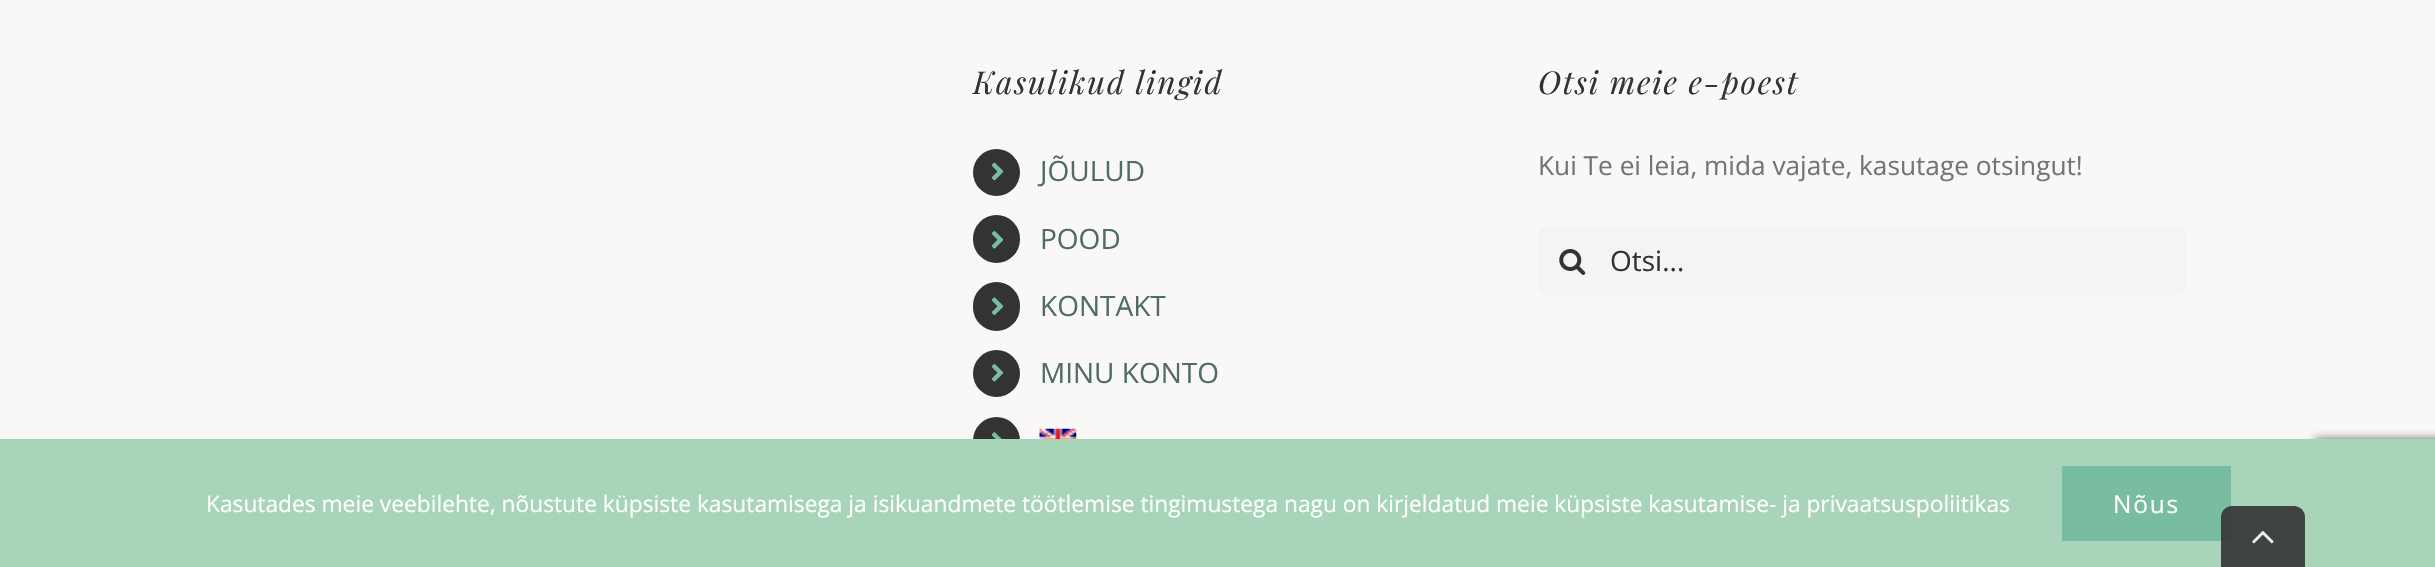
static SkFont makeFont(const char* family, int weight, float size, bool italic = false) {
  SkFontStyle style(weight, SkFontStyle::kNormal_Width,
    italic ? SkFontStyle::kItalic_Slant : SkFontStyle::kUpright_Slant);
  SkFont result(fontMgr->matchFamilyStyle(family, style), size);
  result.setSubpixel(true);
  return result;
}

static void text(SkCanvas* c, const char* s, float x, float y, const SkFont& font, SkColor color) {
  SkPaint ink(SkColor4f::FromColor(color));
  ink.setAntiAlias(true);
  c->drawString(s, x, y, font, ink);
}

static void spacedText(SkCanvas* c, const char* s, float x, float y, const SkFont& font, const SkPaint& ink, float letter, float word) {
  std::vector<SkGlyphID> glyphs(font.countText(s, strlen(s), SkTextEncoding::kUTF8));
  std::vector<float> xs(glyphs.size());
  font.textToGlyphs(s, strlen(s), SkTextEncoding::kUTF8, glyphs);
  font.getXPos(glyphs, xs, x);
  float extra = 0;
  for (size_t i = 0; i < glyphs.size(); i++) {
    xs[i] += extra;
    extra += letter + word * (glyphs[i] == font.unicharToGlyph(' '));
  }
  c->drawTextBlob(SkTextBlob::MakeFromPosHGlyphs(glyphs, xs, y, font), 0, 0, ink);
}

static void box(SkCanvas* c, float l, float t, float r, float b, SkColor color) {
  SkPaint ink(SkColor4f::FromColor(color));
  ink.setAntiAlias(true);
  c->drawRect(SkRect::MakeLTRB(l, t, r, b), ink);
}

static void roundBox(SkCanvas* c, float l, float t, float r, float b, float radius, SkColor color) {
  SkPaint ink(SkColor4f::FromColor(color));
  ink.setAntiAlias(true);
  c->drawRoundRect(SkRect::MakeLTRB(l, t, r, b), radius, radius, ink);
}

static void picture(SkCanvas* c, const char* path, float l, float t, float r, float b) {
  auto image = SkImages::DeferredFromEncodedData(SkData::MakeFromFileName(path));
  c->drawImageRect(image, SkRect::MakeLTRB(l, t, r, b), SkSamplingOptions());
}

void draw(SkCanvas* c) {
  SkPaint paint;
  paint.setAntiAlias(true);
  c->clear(0xfff9f8f7);
  SkFont face1 = makeFont("Playfair Display", 400, 31.5f, true);
  paint.setColor(0xff333333);
  spacedText(c, "Kasulikud lingid", 973, 94, face1, paint, 1.75f, 0);
  c->drawCircle(996.5f, 172.5f, 23.5f, paint);
  picture(c, "img_01.png", 991, 162, 1004, 181);
  SkFont face2 = makeFont("Open Sans", 400, 28);
  text(c, "JÕULUD", 1040, 181, face2, 0xff506d61);
  roundBox(c, 973, 215, 1020, 263, 23.5f, 0xff333333);
  picture(c, "img_02.png", 991, 231, 1004, 249);
  text(c, "POOD", 1040, 249, face2, 0xff506d61);
  roundBox(c, 973, 282, 1020, 331, 23.5f, 0xff333333);
  picture(c, "img_03.png", 991, 297, 1004, 315);
  text(c, "KONTAKT", 1040, 316, face2, 0xff506d61);
  c->drawCircle(996.5f, 373.5f, 23.5f, paint);
  picture(c, "img_02.png", 991, 364, 1004, 382);
  text(c, "MINU KONTO", 1040, 383, face2, 0xff506d61);
  c->drawCircle(996.5f, 440.5f, 23.5f, paint);
  picture(c, "img_04.png", 991, 432, 1002, 439);
  picture(c, "img_05.png", 1039, 428, 1077, 439);
  spacedText(c, "Otsi meie e-poest", 1538, 94, face1, paint, 1.75f, 0);
  SkFont face3 = makeFont("Open Sans", 400, 26.25f);
  text(c, "Kui Te ei leia, mida vajate, kasutage otsingut!", 1538, 175, face3, 0xff747474);
  roundBox(c, 1538, 226, 2186, 296, 11, 0xfff4f4f2);
  picture(c, "img_06.png", 1559, 249, 1586, 275);
  text(c, "Otsi...", 1610, 271, face2, 0xff333333);
  paint.setColor(0xff808080);
  paint.setMaskFilter(SkMaskFilter::MakeBlur(kNormal_SkBlurStyle, 4.5f));
  c->drawRoundRect(SkRect::MakeLTRB(2314, 438, 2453, 543), 4, 4, paint);
  paint.setMaskFilter(nullptr);
  box(c, 0, 439, 2435, 567, 0xffa8d4ba);
  SkFont face4 = makeFont("Open Sans", 400, 22.75f);
  text(c, "Kasutades meie veebilehte, nõustute küpsiste kasutamisega ja isikuandmete töötlemise tingimustega nagu on kirjeldatud meie küpsiste kasutamise- ja privaatsuspoliitikas", 206, 512, face4, 0xffffffff);
  box(c, 2062, 466, 2231, 541, 0xff78bca1);
  SkFont face5 = makeFont("Open Sans", 400, 24.5f);
  paint.setColor(0xffffffff);
  spacedText(c, "Nõus", 2113, 513, face5, paint, 1.75f, 0);
  paint.setColor(0xe6333333);
  c->drawPath(SkPathBuilder().moveTo(2232, 506).lineTo(2294, 506).cubicTo(2300, 506, 2305, 511, 2305, 517).lineTo(2305, 567).lineTo(2221, 567).lineTo(2221, 517).cubicTo(2221, 511, 2226, 506, 2232, 506).close().detach(), paint);
  picture(c, "img_07.png", 2252, 531, 2274, 544);
}
